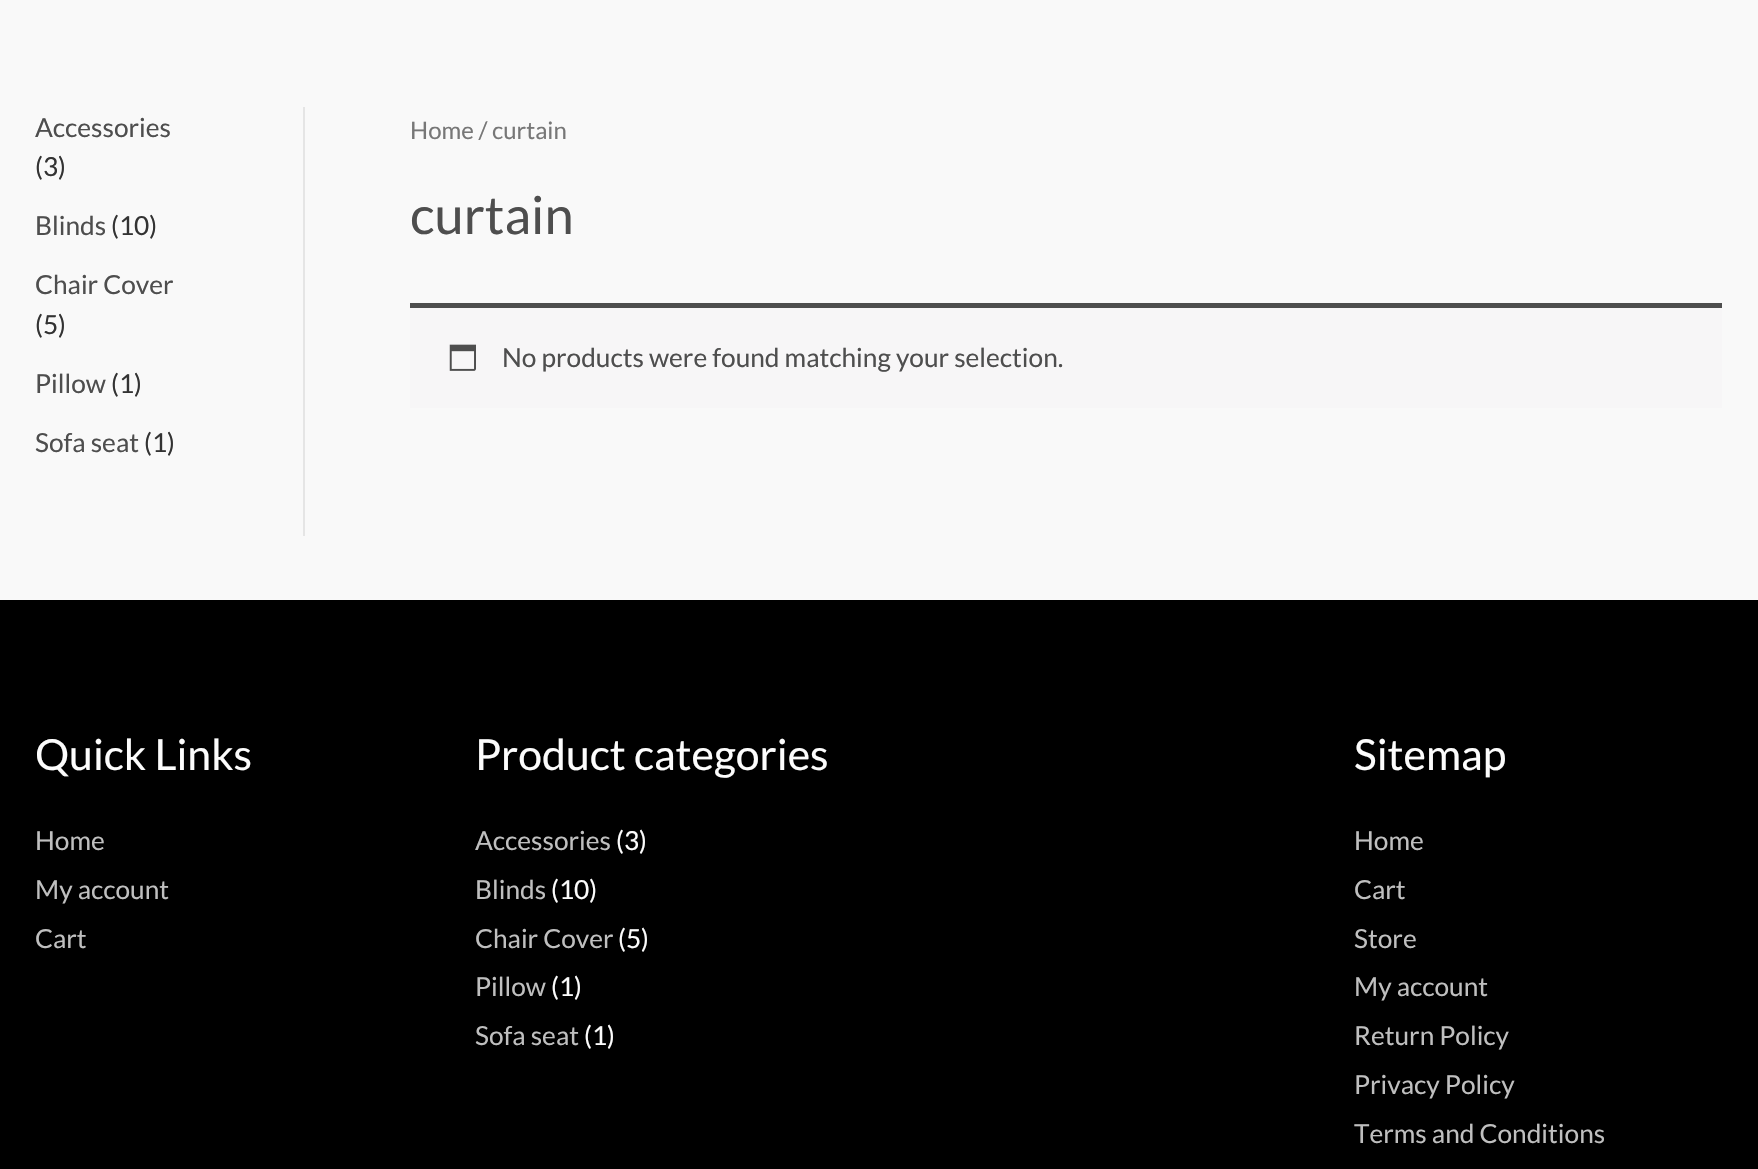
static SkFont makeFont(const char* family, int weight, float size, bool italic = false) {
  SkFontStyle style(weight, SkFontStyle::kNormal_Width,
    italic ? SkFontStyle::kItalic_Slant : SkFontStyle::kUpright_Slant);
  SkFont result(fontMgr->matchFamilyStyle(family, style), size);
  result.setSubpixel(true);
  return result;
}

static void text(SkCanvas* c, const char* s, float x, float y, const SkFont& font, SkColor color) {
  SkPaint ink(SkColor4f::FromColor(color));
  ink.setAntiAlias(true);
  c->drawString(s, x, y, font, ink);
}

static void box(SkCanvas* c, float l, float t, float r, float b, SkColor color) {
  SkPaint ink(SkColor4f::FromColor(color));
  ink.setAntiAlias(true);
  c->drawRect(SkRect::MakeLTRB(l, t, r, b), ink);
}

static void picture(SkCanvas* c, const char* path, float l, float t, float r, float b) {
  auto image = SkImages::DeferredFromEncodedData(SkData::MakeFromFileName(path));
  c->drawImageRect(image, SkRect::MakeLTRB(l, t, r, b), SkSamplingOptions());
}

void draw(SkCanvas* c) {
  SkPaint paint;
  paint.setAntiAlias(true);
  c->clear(0xfff9f9f9);
  box(c, 303, 107, 305, 536, 0xffe5e5e5);
  SkFont face1 = makeFont("Lato", 400, 26.25f);
  text(c, "Accessories", 35, 137, face1, 0xff4e4e4e);
  text(c, "(3)", 35, 176, face1, 0xff333333);
  text(c, "Blinds", 35, 235, face1, 0xff4e4e4e);
  text(c, "(10)", 111, 235, face1, 0xff333333);
  text(c, "Chair Cover", 35, 294, face1, 0xff4e4e4e);
  text(c, "(5)", 35, 334, face1, 0xff333333);
  text(c, "Pillow", 35, 393, face1, 0xff4e4e4e);
  text(c, "(1)", 111, 393, face1, 0xff333333);
  text(c, "Sofa seat", 35, 452, face1, 0xff4e4e4e);
  text(c, "(1)", 144, 452, face1, 0xff333333);
  SkFont face2 = makeFont("Lato", 400, 24);
  text(c, "Home / curtain", 410, 139, face2, 0xff777777);
  SkFont face3 = makeFont("Lato", 400, 52.5f);
  text(c, "curtain", 410, 234, face3, 0xff4e4e4e);
  box(c, 410, 308, 1722, 408, 0xfff7f6f7);
  box(c, 410, 303, 1722, 308, 0xff4e4e4e);
  picture(c, "img_01.png", 449, 344, 476, 371);
  text(c, "No products were found matching your selection.", 502, 367, face1, 0xff4e4e4e);
  box(c, 0, 600, 1758, 1169, 0xff000000);
  SkFont face4 = makeFont("Lato", 400, 42.75f);
  text(c, "Quick Links", 35, 770, face4, 0xfffcfcfc);
  text(c, "Home", 35, 850, face1, 0xffbfbfbf);
  text(c, "My account", 35, 899, face1, 0xffbfbfbf);
  text(c, "Cart", 35, 948, face1, 0xffbfbfbf);
  text(c, "Product categories", 475, 770, face4, 0xfffcfcfc);
  text(c, "Accessories", 475, 850, face1, 0xffbfbfbf);
  text(c, "(3)", 616, 850, face1, 0xfffcfcfc);
  text(c, "Blinds", 475, 899, face1, 0xffbfbfbf);
  text(c, "(10)", 551, 899, face1, 0xfffcfcfc);
  text(c, "Chair Cover", 475, 948, face1, 0xffbfbfbf);
  text(c, "(5)", 618, 948, face1, 0xfffcfcfc);
  text(c, "Pillow", 475, 996, face1, 0xffbfbfbf);
  text(c, "(1)", 551, 996, face1, 0xfffcfcfc);
  text(c, "Sofa seat", 475, 1045, face1, 0xffbfbfbf);
  text(c, "(1)", 584, 1045, face1, 0xfffcfcfc);
  text(c, "Sitemap", 1354, 770, face4, 0xfffcfcfc);
  text(c, "Home", 1354, 850, face1, 0xffbfbfbf);
  text(c, "Cart", 1354, 899, face1, 0xffbfbfbf);
  text(c, "Store", 1354, 948, face1, 0xffbfbfbf);
  text(c, "My account", 1354, 996, face1, 0xffbfbfbf);
  text(c, "Return Policy", 1354, 1045, face1, 0xffbfbfbf);
  text(c, "Privacy Policy", 1354, 1094, face1, 0xffbfbfbf);
  text(c, "Terms and Conditions", 1354, 1143, face1, 0xffbfbfbf);
}
